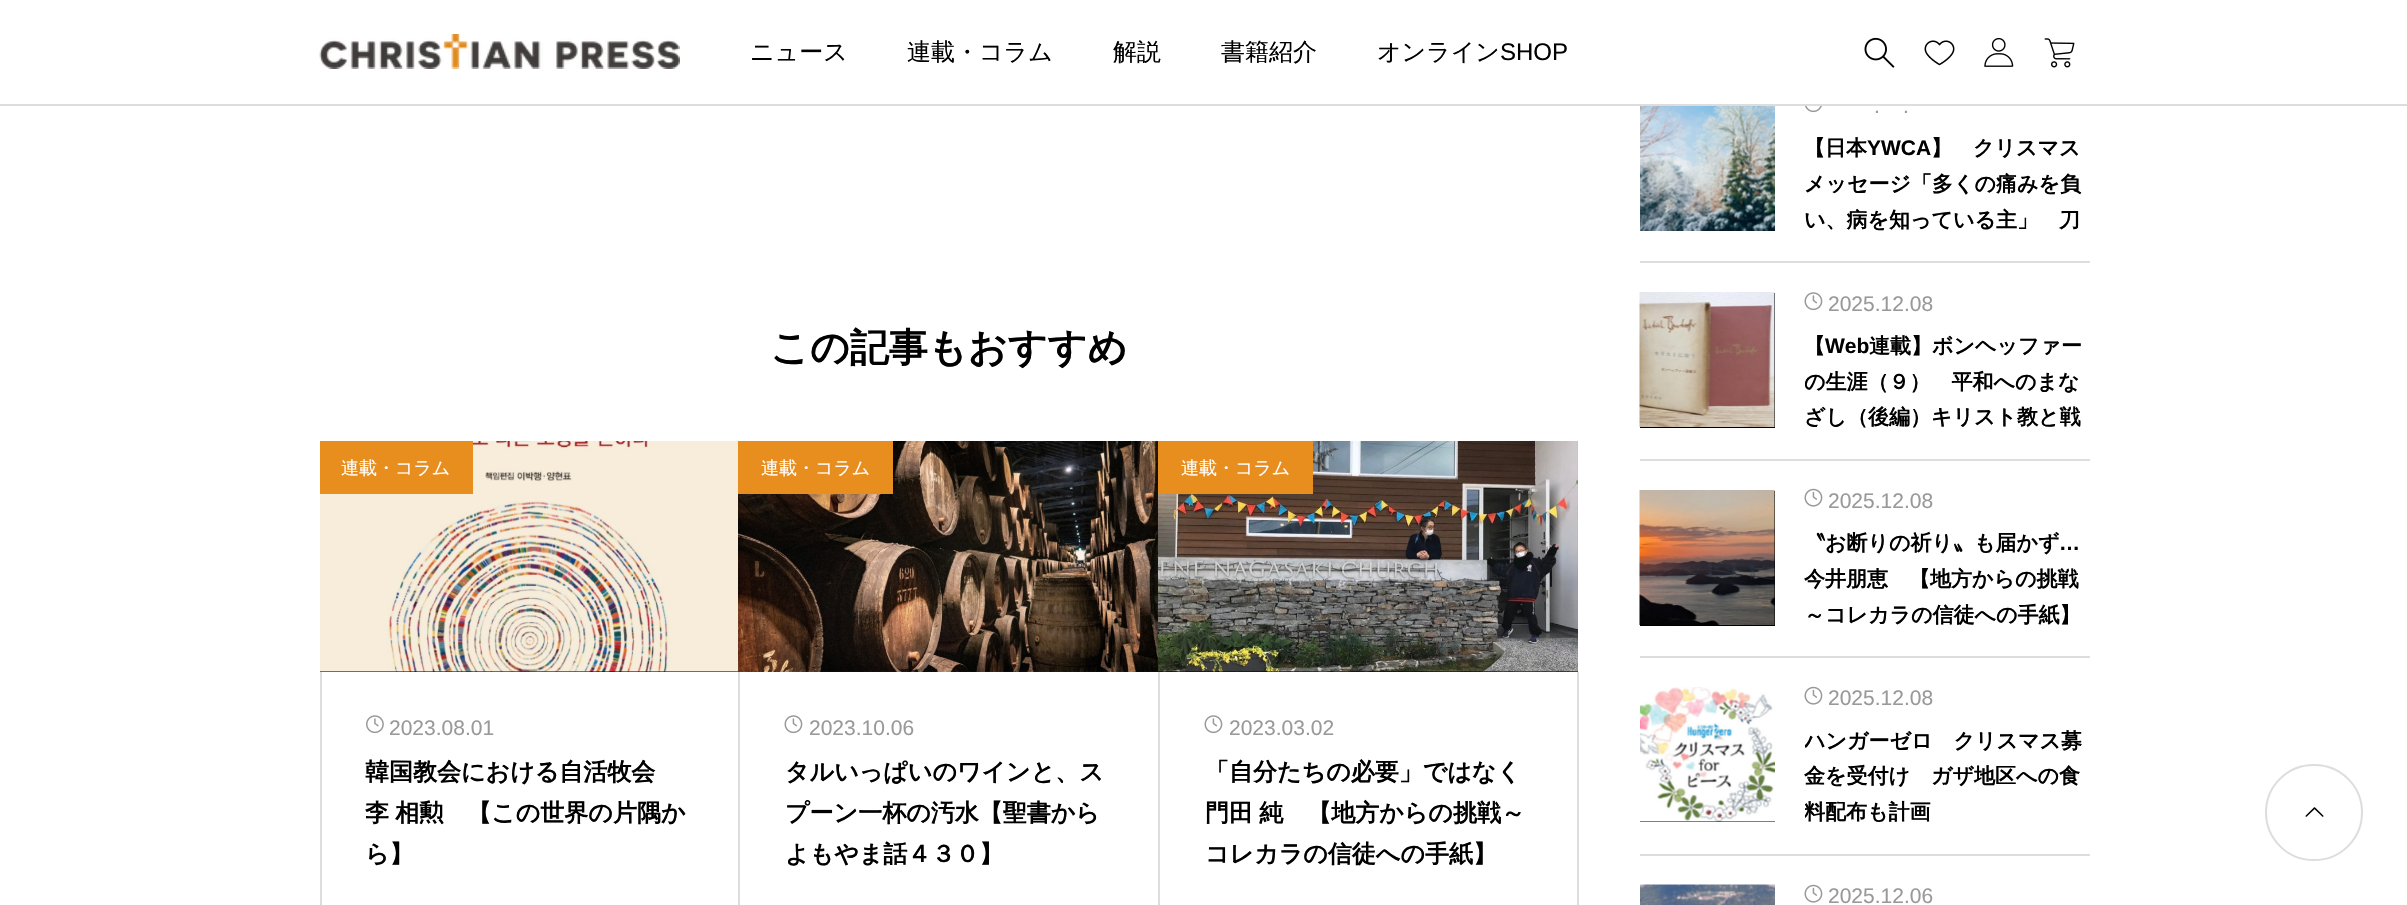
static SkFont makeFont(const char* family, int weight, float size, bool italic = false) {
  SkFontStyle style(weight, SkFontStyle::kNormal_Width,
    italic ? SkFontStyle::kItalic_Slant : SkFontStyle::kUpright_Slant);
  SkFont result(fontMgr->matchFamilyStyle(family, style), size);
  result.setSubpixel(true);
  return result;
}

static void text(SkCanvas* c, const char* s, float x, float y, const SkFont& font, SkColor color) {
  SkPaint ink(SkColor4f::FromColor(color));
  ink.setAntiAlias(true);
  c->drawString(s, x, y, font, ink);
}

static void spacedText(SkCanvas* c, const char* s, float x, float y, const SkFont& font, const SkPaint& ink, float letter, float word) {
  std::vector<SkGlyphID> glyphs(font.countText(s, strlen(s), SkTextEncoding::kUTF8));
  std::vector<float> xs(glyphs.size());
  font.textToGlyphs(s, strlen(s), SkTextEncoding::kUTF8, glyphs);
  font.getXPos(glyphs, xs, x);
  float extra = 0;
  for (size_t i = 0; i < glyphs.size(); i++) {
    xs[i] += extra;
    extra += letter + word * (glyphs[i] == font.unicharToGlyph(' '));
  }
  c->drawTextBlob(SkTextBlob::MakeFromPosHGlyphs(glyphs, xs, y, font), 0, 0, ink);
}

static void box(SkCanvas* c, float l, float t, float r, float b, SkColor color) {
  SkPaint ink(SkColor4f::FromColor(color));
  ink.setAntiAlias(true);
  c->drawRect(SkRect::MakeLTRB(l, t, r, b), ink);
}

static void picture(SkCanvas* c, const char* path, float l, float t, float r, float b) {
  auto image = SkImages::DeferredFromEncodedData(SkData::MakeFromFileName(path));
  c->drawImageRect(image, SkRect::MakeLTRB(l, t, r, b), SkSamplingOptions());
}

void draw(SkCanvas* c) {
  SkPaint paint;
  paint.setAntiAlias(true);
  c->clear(0xffffffff);
  box(c, 0, 104, 2407, 106, 0xffdddddd);
  picture(c, "img_01.png", 319, 34, 680, 69);
  SkFont face1 = makeFont("WenQuanYi Zen Hei", 500, 24);
  text(c, "ニュース", 750, 60, face1, 0xff000000);
  text(c, "連載・コラム", 907, 60, face1, 0xff000000);
  text(c, "解説", 1113, 60, face1, 0xff000000);
  text(c, "書籍紹介", 1221, 60, face1, 0xff000000);
  text(c, "オンライン", 1377, 60, face1, 0xff000000);
  SkFont face2 = makeFont("Liberation Sans", 400, 24);
  text(c, "SHOP", 1500, 60, face2, 0xff000000);
  picture(c, "img_02.png", 1864, 37, 1895, 68);
  picture(c, "img_03.png", 1924, 40, 1955, 66);
  picture(c, "img_04.png", 1984, 37, 2014, 67);
  picture(c, "img_05.png", 2044, 38, 2075, 68);
  SkFont face3 = makeFont("WenQuanYi Zen Hei", 700, 39);
  text(c, "この記事もおすすめ", 770, 361, face3, 0xff000000);
  box(c, 320, 671, 738, 672, 0xff000000);
  picture(c, "img_06.png", 320, 441, 738, 672);
  box(c, 320, 441, 473, 494, 0xffe78e1e);
  SkFont face4 = makeFont("WenQuanYi Zen Hei", 500, 18);
  text(c, "連載・コラム", 341, 474, face4, 0xffffffff);
  box(c, 320, 672, 322, 905, 0xffdddddd);
  picture(c, "img_07.png", 366, 715, 384, 734);
  SkFont face5 = makeFont("Liberation Sans", 400, 21);
  text(c, "2023.08.01", 389, 735, face5, 0xff999999);
  SkFont face6 = makeFont("WenQuanYi Zen Hei", 700, 24);
  text(c, "韓国教会における自活牧会", 365, 780, face6, 0xff000000);
  paint.setColor(0xff000000);
  spacedText(c, "李 相勲　【この世界の片隅か", 365, 821, face6, paint, 0, -1);
  text(c, "ら】", 365, 862, face6, 0xff000000);
  picture(c, "img_08.png", 738, 441, 1158, 672);
  box(c, 738, 441, 893, 494, 0xffe78e1e);
  text(c, "連載・コラム", 761, 474, face4, 0xffffffff);
  box(c, 738, 672, 740, 905, 0xffdddddd);
  picture(c, "img_09.png", 784, 715, 803, 734);
  text(c, "2023.10.06", 809, 735, face5, 0xff999999);
  text(c, "タルいっぱいのワインと、ス", 785, 780, face6, 0xff000000);
  text(c, "プーン一杯の汚水【聖書から", 785, 821, face6, 0xff000000);
  text(c, "よもやま話４３０】", 785, 862, face6, 0xff000000);
  box(c, 1158, 441, 1578, 672, 0xff000000);
  picture(c, "img_10.png", 1158, 441, 1578, 672);
  box(c, 1158, 441, 1313, 494, 0xffe78e1e);
  text(c, "連載・コラム", 1181, 474, face4, 0xffffffff);
  box(c, 1577, 672, 1579, 905, 0xffdddddd);
  box(c, 1158, 672, 1160, 905, 0xffdddddd);
  picture(c, "img_09.png", 1204, 715, 1223, 734);
  text(c, "2023.03.02", 1229, 735, face5, 0xff999999);
  text(c, "「自分たちの必要」ではなく", 1205, 780, face6, 0xff000000);
  spacedText(c, "門田 純　【地方からの挑戦～", 1205, 821, face6, paint, 0, -1);
  text(c, "コレカラの信徒への手紙】", 1205, 862, face6, 0xff000000);
  picture(c, "img_11.png", 1640, 106, 1775, 231);
  picture(c, "img_12.png", 1805, 106, 1822, 113);
  text(c, ".", 1874, 113, face5, 0xff999999);
  text(c, ".", 1903, 113, face5, 0xff999999);
  SkFont face7 = makeFont("WenQuanYi Zen Hei", 700, 21);
  text(c, "【日本", 1804, 155, face7, 0xff000000);
  SkFont face8 = makeFont("Liberation Sans", 700, 21);
  text(c, "YWCA", 1867, 155, face8, 0xff000000);
  text(c, "】　クリスマス", 1931, 155, face7, 0xff000000);
  text(c, "メッセージ「多くの痛みを負", 1804, 191, face7, 0xff000000);
  text(c, "い、病を知っている主」　刀", 1804, 227, face7, 0xff000000);
  box(c, 1640, 261, 2090, 263, 0xffdddddd);
  box(c, 1640, 293, 1775, 428, 0xff000000);
  picture(c, "img_13.png", 1639, 292, 1775, 427);
  picture(c, "img_09.png", 1804, 292, 1823, 311);
  text(c, "2025.12.08", 1828, 311, face5, 0xff999999);
  text(c, "【", 1804, 353, face7, 0xff000000);
  text(c, "Web", 1825, 353, face8, 0xff000000);
  text(c, "連載】ボンヘッファー", 1869, 353, face7, 0xff000000);
  c->save();
  c->clipRect(SkRect::MakeLTRB(1805, 329, 2090, 437));
  text(c, "の生涯（９）　平和へのまな", 1804, 389, face7, 0xff000000);
  c->restore();
  text(c, "ざし（後編）キリスト教と戦", 1804, 424, face7, 0xff000000);
  box(c, 1640, 459, 2090, 461, 0xffdddddd);
  box(c, 1640, 491, 1775, 626, 0xff000000);
  picture(c, "img_14.png", 1639, 490, 1775, 625);
  picture(c, "img_15.png", 1804, 488, 1823, 507);
  text(c, "2025.12.08", 1828, 508, face5, 0xff999999);
  text(c, "〝お断りの祈り〟も届かず", 1804, 550, face7, 0xff000000);
  text(c, "…", 2059, 550, face8, 0xff000000);
  text(c, "今井朋恵　【地方からの挑戦", 1804, 586, face7, 0xff000000);
  text(c, "～コレカラの信徒への手紙】", 1804, 622, face7, 0xff000000);
  box(c, 1640, 656, 2090, 658, 0xffdddddd);
  box(c, 1640, 821, 1775, 822, 0xff000000);
  picture(c, "img_16.png", 1640, 687, 1775, 822);
  picture(c, "img_15.png", 1804, 686, 1823, 705);
  text(c, "2025.12.08", 1828, 705, face5, 0xff999999);
  c->save();
  c->clipRect(SkRect::MakeLTRB(1805, 723, 2090, 831));
  text(c, "ハンガーゼロ　クリスマス募", 1804, 748, face7, 0xff000000);
  c->restore();
  text(c, "金を受付け　ガザ地区への食", 1804, 783, face7, 0xff000000);
  c->save();
  c->clipRect(SkRect::MakeLTRB(1805, 723, 2090, 831));
  text(c, "料配布も計画", 1804, 819, face7, 0xff000000);
  c->restore();
  box(c, 1640, 854, 2090, 856, 0xffdddddd);
  picture(c, "img_17.png", 1640, 884, 1775, 905);
  picture(c, "img_15.png", 1804, 884, 1823, 903);
  text(c, "2025.12.06", 1828, 903, face5, 0xff999999);
  paint.setStyle(SkPaint::kStroke_Style);
  paint.setStrokeWidth(2);
  paint.setColor(0xffdddddd);
  c->drawRoundRect(SkRect::MakeLTRB(2266, 765, 2362, 860), 47.5f, 47.5f, paint);
  picture(c, "img_18.png", 2305, 807, 2324, 817);
}
